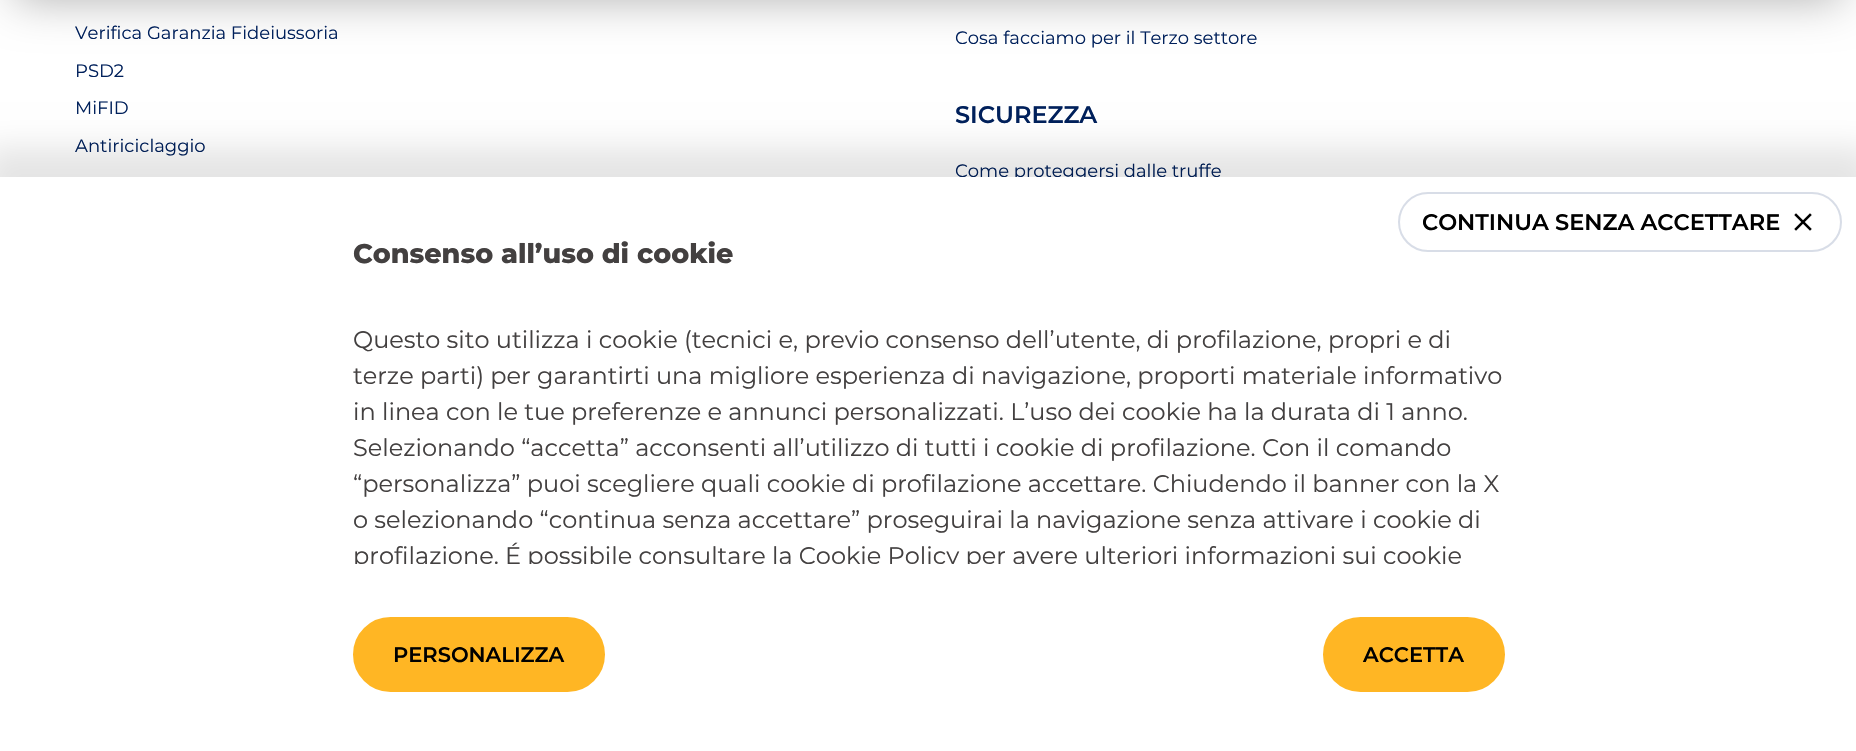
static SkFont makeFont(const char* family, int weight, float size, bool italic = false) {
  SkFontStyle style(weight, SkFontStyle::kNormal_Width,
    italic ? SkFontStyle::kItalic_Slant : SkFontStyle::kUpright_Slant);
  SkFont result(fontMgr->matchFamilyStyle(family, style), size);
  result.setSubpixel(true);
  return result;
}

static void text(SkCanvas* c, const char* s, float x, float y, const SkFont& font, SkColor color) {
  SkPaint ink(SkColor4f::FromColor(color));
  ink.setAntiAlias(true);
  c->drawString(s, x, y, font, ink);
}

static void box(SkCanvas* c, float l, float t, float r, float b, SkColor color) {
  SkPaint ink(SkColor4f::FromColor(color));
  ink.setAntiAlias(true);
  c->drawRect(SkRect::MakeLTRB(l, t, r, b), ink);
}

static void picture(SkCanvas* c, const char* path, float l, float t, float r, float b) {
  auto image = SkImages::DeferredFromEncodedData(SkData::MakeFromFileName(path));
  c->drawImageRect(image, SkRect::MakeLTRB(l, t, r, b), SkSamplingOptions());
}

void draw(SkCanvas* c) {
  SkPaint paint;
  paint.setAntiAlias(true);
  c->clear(0xffffffff);
  paint.setColor(0x4d000000);
  paint.setMaskFilter(SkMaskFilter::MakeBlur(kNormal_SkBlurStyle, 22.5f));
  c->drawRect(SkRect::MakeLTRB(15, -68, 1842, 0), paint);
  paint.setMaskFilter(nullptr);
  SkFont face1 = makeFont("Montserrat", 400, 18);
  text(c, "Verifica Garanzia Fideiussoria", 75, 39, face1, 0xff00205b);
  text(c, "PSD2", 75, 77, face1, 0xff00205b);
  text(c, "MiFID", 75, 114, face1, 0xff00205b);
  text(c, "Antiriciclaggio", 75, 152, face1, 0xff00205b);
  text(c, "Cosa facciamo per il Terzo settore", 955, 44, face1, 0xff00205b);
  SkFont face2 = makeFont("Montserrat", 600, 24);
  text(c, "SICUREZZA", 955, 123, face2, 0xff00205b);
  text(c, "Come proteggersi dalle truffe", 955, 177, face1, 0xff00205b);
  paint.setColor(0x1a000000);
  paint.setMaskFilter(SkMaskFilter::MakeBlur(kNormal_SkBlurStyle, 15));
  c->drawRect(SkRect::MakeLTRB(-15, 147, 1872, 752), paint);
  paint.setMaskFilter(nullptr);
  box(c, 0, 177, 1856, 751, 0xffffffff);
  paint.setStyle(SkPaint::kStroke_Style);
  paint.setStrokeWidth(2);
  paint.setColor(0xffd8dde7);
  c->drawRoundRect(SkRect::MakeLTRB(1399, 193, 1841, 251), 29, 29, paint);
  SkFont face3 = makeFont("Montserrat", 600, 22.5f);
  text(c, "CONTINUA SENZA ACCETTARE", 1422, 230, face3, 0xff000000);
  picture(c, "img_01.png", 1794, 213, 1812, 231);
  SkFont face4 = makeFont("Montserrat", 800, 27);
  text(c, "Consenso all’uso di cookie", 353, 263, face4, 0xff434040);
  SkFont face5 = makeFont("Montserrat", 400, 24);
  text(c, "Questo sito utilizza i cookie (tecnici e, previo consenso dell’utente, di profilazione, propri e di", 353, 348, face5, 0xff434040);
  text(c, "terze parti) per garantirti una migliore esperienza di navigazione, proporti materiale informativo", 353, 384, face5, 0xff434040);
  text(c, "in linea con le tue preferenze e annunci personalizzati. L’uso dei cookie ha la durata di 1 anno.", 353, 420, face5, 0xff434040);
  text(c, "Selezionando “accetta” acconsenti all’utilizzo di tutti i cookie di profilazione. Con il comando", 353, 456, face5, 0xff434040);
  text(c, "“personalizza” puoi scegliere quali cookie di profilazione accettare. Chiudendo il banner con la X", 353, 492, face5, 0xff434040);
  text(c, "o selezionando “continua senza accettare” proseguirai la navigazione senza attivare i cookie di", 353, 528, face5, 0xff434040);
  c->save();
  c->clipRect(SkRect::MakeLTRB(353, 293, 1505, 564));
  text(c, "profilazione. É possibile consultare la Cookie Policy per avere ulteriori informazioni sui cookie", 353, 564, face5, 0xff434040);
  c->restore();
  paint.setStyle(SkPaint::kFill_Style);
  paint.setColor(0xffffb624);
  c->drawRoundRect(SkRect::MakeLTRB(354.5f, 618.5f, 603.5f, 690.5f), 36, 36, paint);
  paint.setStyle(SkPaint::kStroke_Style);
  paint.setStrokeWidth(3);
  c->drawRoundRect(SkRect::MakeLTRB(354.5f, 618.5f, 603.5f, 690.5f), 36, 36, paint);
  SkFont face6 = makeFont("Montserrat", 600, 21);
  text(c, "PERSONALIZZA", 393, 662, face6, 0xff000000);
  paint.setStyle(SkPaint::kFill_Style);
  c->drawRoundRect(SkRect::MakeLTRB(1324.5f, 618.5f, 1503.5f, 690.5f), 36, 36, paint);
  paint.setStyle(SkPaint::kStroke_Style);
  c->drawRoundRect(SkRect::MakeLTRB(1324.5f, 618.5f, 1503.5f, 690.5f), 36, 36, paint);
  text(c, "ACCETTA", 1363, 662, face6, 0xff000000);
}
